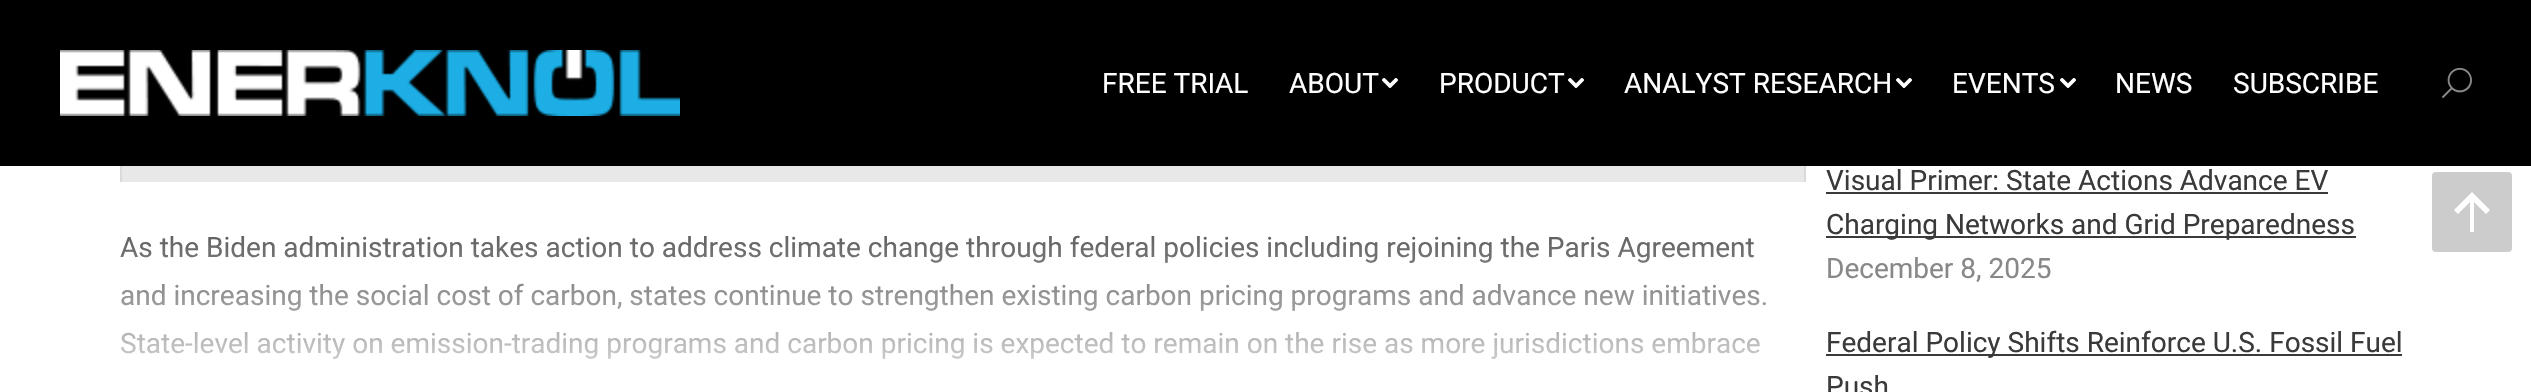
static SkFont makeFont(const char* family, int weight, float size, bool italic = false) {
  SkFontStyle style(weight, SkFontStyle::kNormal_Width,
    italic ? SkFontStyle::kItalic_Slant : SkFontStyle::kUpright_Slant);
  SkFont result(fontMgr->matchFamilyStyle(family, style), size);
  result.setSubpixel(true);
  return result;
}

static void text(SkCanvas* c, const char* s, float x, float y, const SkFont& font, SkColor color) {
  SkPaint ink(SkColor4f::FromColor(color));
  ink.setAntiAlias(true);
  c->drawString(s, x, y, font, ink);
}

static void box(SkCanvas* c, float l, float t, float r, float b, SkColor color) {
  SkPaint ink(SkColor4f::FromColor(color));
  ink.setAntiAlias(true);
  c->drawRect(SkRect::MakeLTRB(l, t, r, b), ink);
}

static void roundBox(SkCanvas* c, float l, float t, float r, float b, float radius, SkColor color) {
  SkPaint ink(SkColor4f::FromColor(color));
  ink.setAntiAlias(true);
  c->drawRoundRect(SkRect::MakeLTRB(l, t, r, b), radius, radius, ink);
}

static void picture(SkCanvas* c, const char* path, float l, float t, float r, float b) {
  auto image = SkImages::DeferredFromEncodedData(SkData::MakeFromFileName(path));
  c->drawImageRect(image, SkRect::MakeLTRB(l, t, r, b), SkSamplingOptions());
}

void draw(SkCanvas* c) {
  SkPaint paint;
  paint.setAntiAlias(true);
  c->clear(0xffffffff);
  paint.setColor(0xffdadada);
  c->drawPath(SkPathBuilder().moveTo(1806, -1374).lineTo(1806, 182).lineTo(1804, 182).lineTo(1804, -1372).close().detach(), paint);
  c->drawPath(SkPathBuilder().moveTo(120, 182).lineTo(120, -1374).lineTo(122, -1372).lineTo(122, 182).close().detach(), paint);
  box(c, 0, 0, 2531, 166, 0xff000000);
  picture(c, "img_01.png", 60, 50, 680, 116);
  SkFont face1 = makeFont("Roboto", 400, 28);
  text(c, "FREE TRIAL", 1102, 93, face1, 0xffffffff);
  text(c, "ABOUT", 1289, 93, face1, 0xffffffff);
  picture(c, "img_02.png", 1382, 78, 1398, 88);
  text(c, "PRODUCT", 1439, 93, face1, 0xffffffff);
  picture(c, "img_02.png", 1568, 78, 1584, 88);
  text(c, "ANALYST RESEARCH", 1624, 93, face1, 0xffffffff);
  picture(c, "img_02.png", 1896, 78, 1912, 88);
  text(c, "EVENTS", 1952, 93, face1, 0xffffffff);
  picture(c, "img_02.png", 2060, 78, 2076, 88);
  text(c, "NEWS", 2115, 93, face1, 0xffffffff);
  text(c, "SUBSCRIBE", 2233, 93, face1, 0xffffffff);
  picture(c, "img_03.png", 2442, 67, 2472, 98);
  box(c, 122, 166, 1804, 182, 0xffe8e8e8);
  text(c, "As the Biden administration takes action to address climate change through federal policies including rejoining the Paris Agreement", 120, 257, face1, 0xff333333);
  text(c, "and increasing the social cost of carbon, states continue to strengthen existing carbon pricing programs and advance new initiatives.", 120, 305, face1, 0xff333333);
  text(c, "State-level activity on emission-trading programs and carbon pricing is expected to remain on the rise as more jurisdictions embrace", 120, 353, face1, 0xff333333);
  {
    const SkColor colors[] = {0x00ffffff, 0xffffffff};
    const float stops[] = {0, 1};
    const SkPoint ends[] = {{963, 182}, {963, 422}};
    paint.setShader(SkGradientShader::MakeLinear(ends, colors, stops, 2, SkTileMode::kClamp));
    paint.setAlpha(255);
  }
  c->drawRect(SkRect::MakeLTRB(120, 235, 1766, 359), paint);
  text(c, "Visual Primer: State Actions Advance EV", 1826, 190, face1, 0xff3a3a3a);
  box(c, 1826, 192, 2328, 194, 0xff3a3a3a);
  box(c, 1826, 236, 2356, 238, 0xff3a3a3a);
  text(c, "Charging Networks and Grid Preparedness", 1826, 234, face1, 0xff3a3a3a);
  text(c, "December 8, 2025", 1826, 278, face1, 0xff888888);
  box(c, 1826, 354, 2402, 356, 0xff3a3a3a);
  text(c, "Federal Policy Shifts Reinforce U.S. Fossil Fuel", 1826, 352, face1, 0xff3a3a3a);
  text(c, "Push", 1826, 396, face1, 0xff3a3a3a);
  roundBox(c, 2432, 172, 2512, 252, 4, 0xffcccccc);
  paint.setShader(nullptr);
  paint.setColor(0xffffffff);
  c->drawPath(SkPathBuilder().moveTo(2454, 210).lineTo(2458, 214).lineTo(2470, 202).lineTo(2470, 232).lineTo(2474, 232).lineTo(2474, 202).lineTo(2486, 214).lineTo(2490, 210).lineTo(2472, 192).close().detach(), paint);
}
